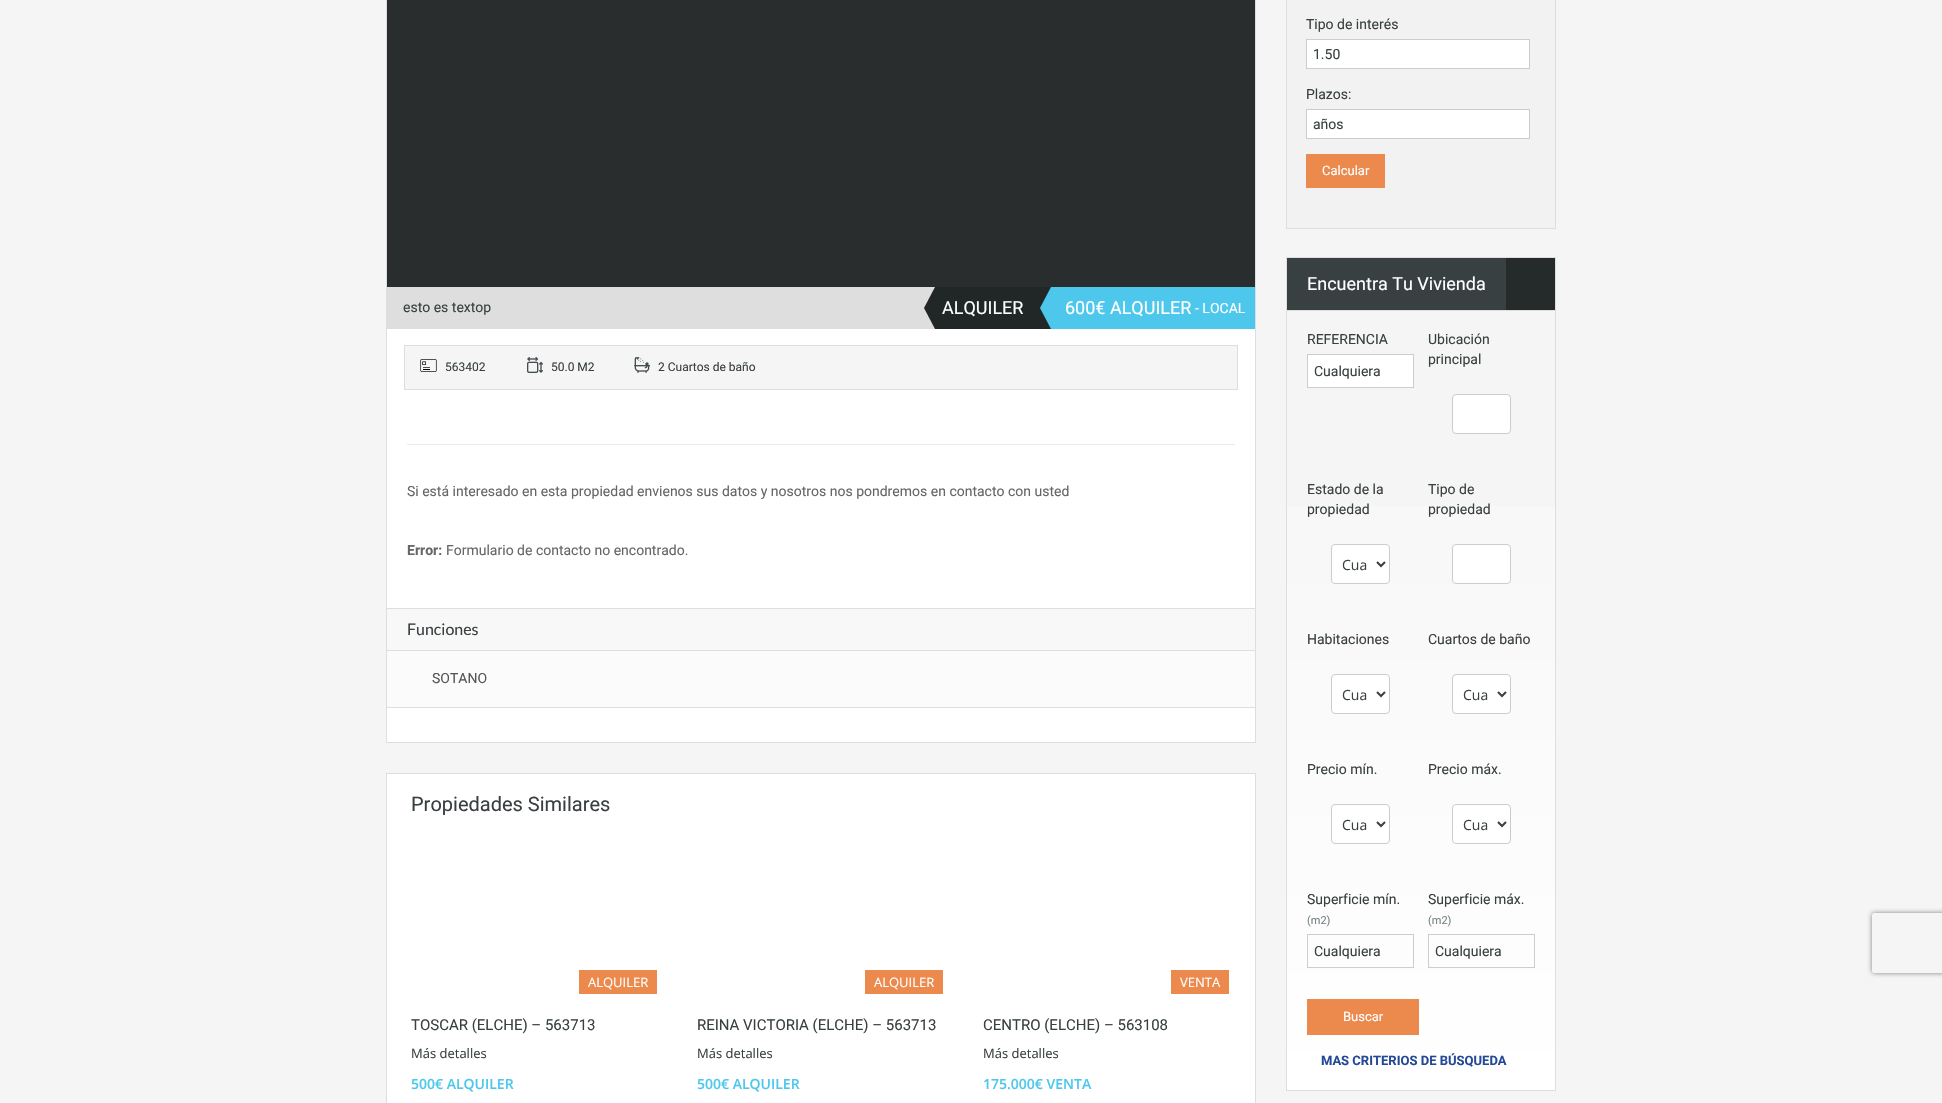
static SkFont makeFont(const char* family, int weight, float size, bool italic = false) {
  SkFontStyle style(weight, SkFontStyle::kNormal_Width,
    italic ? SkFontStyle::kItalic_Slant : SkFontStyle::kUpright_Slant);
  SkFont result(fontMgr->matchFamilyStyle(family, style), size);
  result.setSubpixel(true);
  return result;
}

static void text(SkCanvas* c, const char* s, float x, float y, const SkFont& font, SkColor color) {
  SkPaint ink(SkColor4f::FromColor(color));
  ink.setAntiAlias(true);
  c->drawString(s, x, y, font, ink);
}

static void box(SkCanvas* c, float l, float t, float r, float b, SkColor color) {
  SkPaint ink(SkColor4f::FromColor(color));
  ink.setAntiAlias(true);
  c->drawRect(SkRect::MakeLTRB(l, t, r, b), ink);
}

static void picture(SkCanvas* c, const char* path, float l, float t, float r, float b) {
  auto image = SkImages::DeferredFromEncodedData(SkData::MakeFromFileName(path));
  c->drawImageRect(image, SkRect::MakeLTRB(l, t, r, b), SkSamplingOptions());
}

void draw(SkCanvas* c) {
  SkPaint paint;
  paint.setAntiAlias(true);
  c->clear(0xfff5f5f5);
  box(c, 1255, 0, 1256, 743, 0xffdedede);
  box(c, 386, 0, 387, 743, 0xffdedede);
  box(c, 387, 329, 1255, 742, 0xffffffff);
  box(c, 387, 0, 1255, 287, 0xff292d2d);
  box(c, 387, 287, 935, 329, 0xffdedede);
  SkFont face1 = makeFont("Roboto", 400, 14);
  text(c, "esto es textop", 403, 312, face1, 0xff394041);
  box(c, 1051, 287, 1255, 329, 0xff4dc7ec);
  box(c, 935, 287, 1051, 329, 0xff212727);
  paint.setColor(0xff212727);
  c->drawPath(SkPathBuilder().moveTo(924, 308).lineTo(935, 287).lineTo(935, 329).close().detach(), paint);
  SkFont face2 = makeFont("Roboto", 400, 18);
  text(c, "ALQUILER", 942, 314, face2, 0xffffffff);
  paint.setColor(0xff4dc7ec);
  c->drawPath(SkPathBuilder().moveTo(1040, 308).lineTo(1051, 287).lineTo(1051, 329).close().detach(), paint);
  text(c, "600€ ALQUILER", 1065, 314, face2, 0xffffffff);
  text(c, "- LOCAL", 1195, 313, face1, 0xffffffff);
  paint.setColor(0xfff5f5f5);
  c->drawRect(SkRect::MakeLTRB(404.5f, 345.5f, 1237.5f, 389.5f), paint);
  paint.setStyle(SkPaint::kStroke_Style);
  paint.setStrokeWidth(1);
  paint.setColor(0xffdedede);
  c->drawRect(SkRect::MakeLTRB(404.5f, 345.5f, 1237.5f, 389.5f), paint);
  picture(c, "img_01.png", 420, 359, 437, 372);
  SkFont face3 = makeFont("Roboto", 400, 12);
  text(c, "563402", 445, 371, face3, 0xff394041);
  picture(c, "img_02.png", 527, 357, 543, 373);
  text(c, "50.0 M2", 551, 371, face3, 0xff394041);
  picture(c, "img_03.png", 634, 357, 650, 373);
  text(c, "2 Cuartos de baño", 658, 371, face3, 0xff394041);
  box(c, 387, 608, 1255, 609, 0xffdedede);
  box(c, 407, 444, 1235, 445, 0xffebebeb);
  text(c, "Si está interesado en esta propiedad envienos sus datos y nosotros nos pondremos en contacto con usted", 407, 496, face1, 0xff666666);
  SkFont face4 = makeFont("Roboto", 700, 14);
  text(c, "Error:", 407, 555, face4, 0xff666666);
  text(c, "Formulario de contacto no encontrado.", 446, 555, face1, 0xff666666);
  box(c, 387, 651, 1255, 707, 0xfffbfbfb);
  box(c, 387, 707, 1255, 708, 0xffdedede);
  box(c, 387, 609, 1255, 650, 0xfff8f8f8);
  box(c, 387, 650, 1255, 651, 0xffdedede);
  SkFont face5 = makeFont("Lato", 400, 16);
  text(c, "Funciones", 407, 635, face5, 0xff394041);
  text(c, "SOTANO", 432, 683, face1, 0xff555555);
  box(c, 387, 742, 1255, 743, 0xffdedede);
  paint.setStyle(SkPaint::kFill_Style);
  paint.setColor(0xffffffff);
  c->drawRect(SkRect::MakeLTRB(386.5f, 773.5f, 1255.5f, 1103.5f), paint);
  paint.setStyle(SkPaint::kStroke_Style);
  paint.setColor(0xffdedede);
  c->drawRect(SkRect::MakeLTRB(386.5f, 773.5f, 1255.5f, 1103.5f), paint);
  SkFont face6 = makeFont("Roboto", 400, 20);
  text(c, "Propiedades Similares", 411, 811, face6, 0xff394041);
  box(c, 579, 970, 657, 994, 0xffec894d);
  SkFont face7 = makeFont("Open Sans", 400, 13);
  text(c, "ALQUILER", 588, 987, face7, 0xffffffff);
  SkFont face8 = makeFont("Roboto", 400, 15);
  text(c, "TOSCAR (ELCHE) – 563713", 411, 1030, face8, 0xff394041);
  text(c, "Más detalles", 411, 1058, face7, 0xff394041);
  SkFont face9 = makeFont("Open Sans", 600, 14);
  text(c, "500€ ALQUILER", 411, 1089, face9, 0xff4dc7ec);
  box(c, 865, 970, 943, 994, 0xffec894d);
  text(c, "ALQUILER", 874, 987, face7, 0xffffffff);
  text(c, "REINA VICTORIA (ELCHE) – 563713", 697, 1030, face8, 0xff394041);
  text(c, "Más detalles", 697, 1058, face7, 0xff394041);
  text(c, "500€ ALQUILER", 697, 1089, face9, 0xff4dc7ec);
  box(c, 1171, 970, 1229, 994, 0xffec894d);
  text(c, "VENTA", 1180, 987, face7, 0xffffffff);
  text(c, "CENTRO (ELCHE) – 563108", 983, 1030, face8, 0xff394041);
  text(c, "Más detalles", 983, 1058, face7, 0xff394041);
  text(c, "175.000€ VENTA", 983, 1089, face9, 0xff4dc7ec);
  paint.setStyle(SkPaint::kFill_Style);
  paint.setColor(0xfff2f2f2);
  c->drawRect(SkRect::MakeLTRB(1286.5f, -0.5f, 1555.5f, 228.5f), paint);
  paint.setStyle(SkPaint::kStroke_Style);
  paint.setColor(0xffdedede);
  c->drawRect(SkRect::MakeLTRB(1286.5f, -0.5f, 1555.5f, 228.5f), paint);
  text(c, "Tipo de interés", 1306, 29, face1, 0xff394041);
  paint.setStyle(SkPaint::kFill_Style);
  paint.setColor(0xffffffff);
  c->drawRect(SkRect::MakeLTRB(1306.5f, 39.5f, 1529.5f, 68.5f), paint);
  paint.setStyle(SkPaint::kStroke_Style);
  paint.setColor(0xffcdcdcd);
  c->drawRect(SkRect::MakeLTRB(1306.5f, 39.5f, 1529.5f, 68.5f), paint);
  text(c, "1.50", 1313, 59, face1, 0xff394041);
  text(c, "Plazos:", 1306, 99, face1, 0xff394041);
  paint.setStyle(SkPaint::kFill_Style);
  paint.setColor(0xffffffff);
  c->drawRect(SkRect::MakeLTRB(1306.5f, 109.5f, 1529.5f, 138.5f), paint);
  paint.setStyle(SkPaint::kStroke_Style);
  paint.setColor(0xffcdcdcd);
  c->drawRect(SkRect::MakeLTRB(1306.5f, 109.5f, 1529.5f, 138.5f), paint);
  text(c, "años", 1313, 129, face1, 0xff394041);
  box(c, 1306, 154, 1385, 188, 0xffec894d);
  SkFont face10 = makeFont("Roboto", 400, 13);
  text(c, "Calcular", 1322, 175, face10, 0xffffffff);
  paint.setColor(0xffdedede);
  c->drawRect(SkRect::MakeLTRB(1286.5f, 257.5f, 1555.5f, 1090.5f), paint);
  box(c, 1287, 258, 1506, 310, 0xff394041);
  box(c, 1287, 310, 1555, 311, 0xffdedede);
  text(c, "Encuentra Tu Vivienda", 1307, 290, face2, 0xffffffff);
  box(c, 1506, 258, 1555, 310, 0xff252a2b);
  paint.setStyle(SkPaint::kFill_Style);
  {
    const SkColor colors[] = {0xffffffff, 0xfff5f5f5};
    const float stops[] = {0, 1};
    const SkPoint ends[] = {{1421, 1090}, {1421, 311}};
    paint.setShader(SkGradientShader::MakeLinear(ends, colors, stops, 2, SkTileMode::kClamp));
    paint.setAlpha(255);
  }
  c->drawRect(SkRect::MakeLTRB(1287, 506, 1555, 1090), paint);
  text(c, "REFERENCIA", 1307, 344, face1, 0xff394041);
  paint.setShader(nullptr);
  paint.setColor(0xffffffff);
  c->drawRect(SkRect::MakeLTRB(1307.5f, 354.5f, 1413.5f, 387.5f), paint);
  paint.setStyle(SkPaint::kStroke_Style);
  paint.setColor(0xffcdcdcd);
  c->drawRect(SkRect::MakeLTRB(1307.5f, 354.5f, 1413.5f, 387.5f), paint);
  text(c, "Cualquiera", 1314, 376, face1, 0xff394041);
  text(c, "Ubicación", 1428, 344, face1, 0xff394041);
  text(c, "principal", 1428, 364, face1, 0xff394041);
  paint.setStyle(SkPaint::kFill_Style);
  paint.setColor(0xffffffff);
  c->drawRoundRect(SkRect::MakeLTRB(1452.5f, 394.5f, 1510.5f, 433.5f), 3.5f, 3.5f, paint);
  paint.setStyle(SkPaint::kStroke_Style);
  paint.setColor(0xffcccccc);
  c->drawRoundRect(SkRect::MakeLTRB(1452.5f, 394.5f, 1510.5f, 433.5f), 3.5f, 3.5f, paint);
  text(c, "Estado de la", 1307, 494, face1, 0xff394041);
  text(c, "propiedad", 1307, 514, face1, 0xff394041);
  paint.setStyle(SkPaint::kFill_Style);
  paint.setColor(0xffffffff);
  c->drawRoundRect(SkRect::MakeLTRB(1331.5f, 544.5f, 1389.5f, 583.5f), 3.5f, 3.5f, paint);
  paint.setStyle(SkPaint::kStroke_Style);
  paint.setColor(0xffcccccc);
  c->drawRoundRect(SkRect::MakeLTRB(1331.5f, 544.5f, 1389.5f, 583.5f), 3.5f, 3.5f, paint);
  paint.setStrokeWidth(2);
  paint.setColor(0xff394041);
  c->drawPath(SkPathBuilder().moveTo(1377, 562).lineTo(1381, 566).lineTo(1385, 562).detach(), paint);
  SkFont face11 = makeFont("Open Sans", 400, 14);
  text(c, "Cua", 1342, 570, face11, 0xff394041);
  text(c, "Tipo de", 1428, 494, face1, 0xff394041);
  text(c, "propiedad", 1428, 514, face1, 0xff394041);
  paint.setStyle(SkPaint::kFill_Style);
  paint.setColor(0xffffffff);
  c->drawRoundRect(SkRect::MakeLTRB(1452.5f, 544.5f, 1510.5f, 583.5f), 3.5f, 3.5f, paint);
  paint.setStyle(SkPaint::kStroke_Style);
  paint.setStrokeWidth(1);
  paint.setColor(0xffcccccc);
  c->drawRoundRect(SkRect::MakeLTRB(1452.5f, 544.5f, 1510.5f, 583.5f), 3.5f, 3.5f, paint);
  text(c, "Habitaciones", 1307, 644, face1, 0xff394041);
  paint.setStyle(SkPaint::kFill_Style);
  paint.setColor(0xffffffff);
  c->drawRoundRect(SkRect::MakeLTRB(1331.5f, 674.5f, 1389.5f, 713.5f), 3.5f, 3.5f, paint);
  paint.setStyle(SkPaint::kStroke_Style);
  paint.setColor(0xffcccccc);
  c->drawRoundRect(SkRect::MakeLTRB(1331.5f, 674.5f, 1389.5f, 713.5f), 3.5f, 3.5f, paint);
  paint.setStrokeWidth(2);
  paint.setColor(0xff394041);
  c->drawPath(SkPathBuilder().moveTo(1377, 692).lineTo(1381, 696).lineTo(1385, 692).detach(), paint);
  text(c, "Cua", 1342, 700, face11, 0xff394041);
  text(c, "Cuartos de baño", 1428, 644, face1, 0xff394041);
  paint.setStyle(SkPaint::kFill_Style);
  paint.setColor(0xffffffff);
  c->drawRoundRect(SkRect::MakeLTRB(1452.5f, 674.5f, 1510.5f, 713.5f), 3.5f, 3.5f, paint);
  paint.setStyle(SkPaint::kStroke_Style);
  paint.setStrokeWidth(1);
  paint.setColor(0xffcccccc);
  c->drawRoundRect(SkRect::MakeLTRB(1452.5f, 674.5f, 1510.5f, 713.5f), 3.5f, 3.5f, paint);
  paint.setStrokeWidth(2);
  paint.setColor(0xff394041);
  c->drawPath(SkPathBuilder().moveTo(1498, 692).lineTo(1502, 696).lineTo(1506, 692).detach(), paint);
  text(c, "Cua", 1463, 700, face11, 0xff394041);
  text(c, "Precio mín.", 1307, 774, face1, 0xff394041);
  paint.setStyle(SkPaint::kFill_Style);
  paint.setColor(0xffffffff);
  c->drawRoundRect(SkRect::MakeLTRB(1331.5f, 804.5f, 1389.5f, 843.5f), 3.5f, 3.5f, paint);
  paint.setStyle(SkPaint::kStroke_Style);
  paint.setStrokeWidth(1);
  paint.setColor(0xffcccccc);
  c->drawRoundRect(SkRect::MakeLTRB(1331.5f, 804.5f, 1389.5f, 843.5f), 3.5f, 3.5f, paint);
  paint.setStrokeWidth(2);
  paint.setColor(0xff394041);
  c->drawPath(SkPathBuilder().moveTo(1377, 822).lineTo(1381, 826).lineTo(1385, 822).detach(), paint);
  text(c, "Cua", 1342, 830, face11, 0xff394041);
  text(c, "Precio máx.", 1428, 774, face1, 0xff394041);
  paint.setStyle(SkPaint::kFill_Style);
  paint.setColor(0xffffffff);
  c->drawRoundRect(SkRect::MakeLTRB(1452.5f, 804.5f, 1510.5f, 843.5f), 3.5f, 3.5f, paint);
  paint.setStyle(SkPaint::kStroke_Style);
  paint.setStrokeWidth(1);
  paint.setColor(0xffcccccc);
  c->drawRoundRect(SkRect::MakeLTRB(1452.5f, 804.5f, 1510.5f, 843.5f), 3.5f, 3.5f, paint);
  paint.setStrokeWidth(2);
  paint.setColor(0xff394041);
  c->drawPath(SkPathBuilder().moveTo(1498, 822).lineTo(1502, 826).lineTo(1506, 822).detach(), paint);
  text(c, "Cua", 1463, 830, face11, 0xff394041);
  text(c, "Superficie mín.", 1307, 904, face1, 0xff394041);
  SkFont face12 = makeFont("Roboto", 400, 11);
  text(c, "(m2)", 1307, 924, face12, 0xff758385);
  paint.setStrokeWidth(1);
  paint.setColor(0xffcdcdcd);
  c->drawRect(SkRect::MakeLTRB(1307.5f, 934.5f, 1413.5f, 967.5f), paint);
  text(c, "Cualquiera", 1314, 956, face1, 0xff394041);
  text(c, "Superficie máx.", 1428, 904, face1, 0xff394041);
  text(c, "(m2)", 1428, 924, face12, 0xff758385);
  c->drawRect(SkRect::MakeLTRB(1428.5f, 934.5f, 1534.5f, 967.5f), paint);
  text(c, "Cualquiera", 1435, 956, face1, 0xff394041);
  box(c, 1307, 999, 1419, 1035, 0xffec894d);
  text(c, "Buscar", 1343, 1021, face10, 0xffffffff);
  SkFont face13 = makeFont("Roboto", 700, 13);
  text(c, "MAS CRITERIOS DE BÚSQUEDA", 1321, 1065, face13, 0xff244997);
  c->save();
  c->clipPath(SkPathBuilder(SkPathFillType::kEvenOdd).moveTo(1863, 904).lineTo(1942, 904).lineTo(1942, 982).lineTo(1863, 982).close().moveTo(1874, 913).lineTo(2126, 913).cubicTo(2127, 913, 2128, 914, 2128, 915).lineTo(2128, 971).cubicTo(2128, 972, 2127, 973, 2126, 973).lineTo(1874, 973).cubicTo(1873, 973, 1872, 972, 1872, 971).lineTo(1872, 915).cubicTo(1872, 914, 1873, 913, 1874, 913).close().detach(), true);
  paint.setStyle(SkPaint::kFill_Style);
  paint.setColor(0xff808080);
  paint.setMaskFilter(SkMaskFilter::MakeBlur(kNormal_SkBlurStyle, 2.5f));
  c->drawRoundRect(SkRect::MakeLTRB(1872, 913, 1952, 973), 2, 2, paint);
  paint.setMaskFilter(nullptr);
  c->restore();
}
